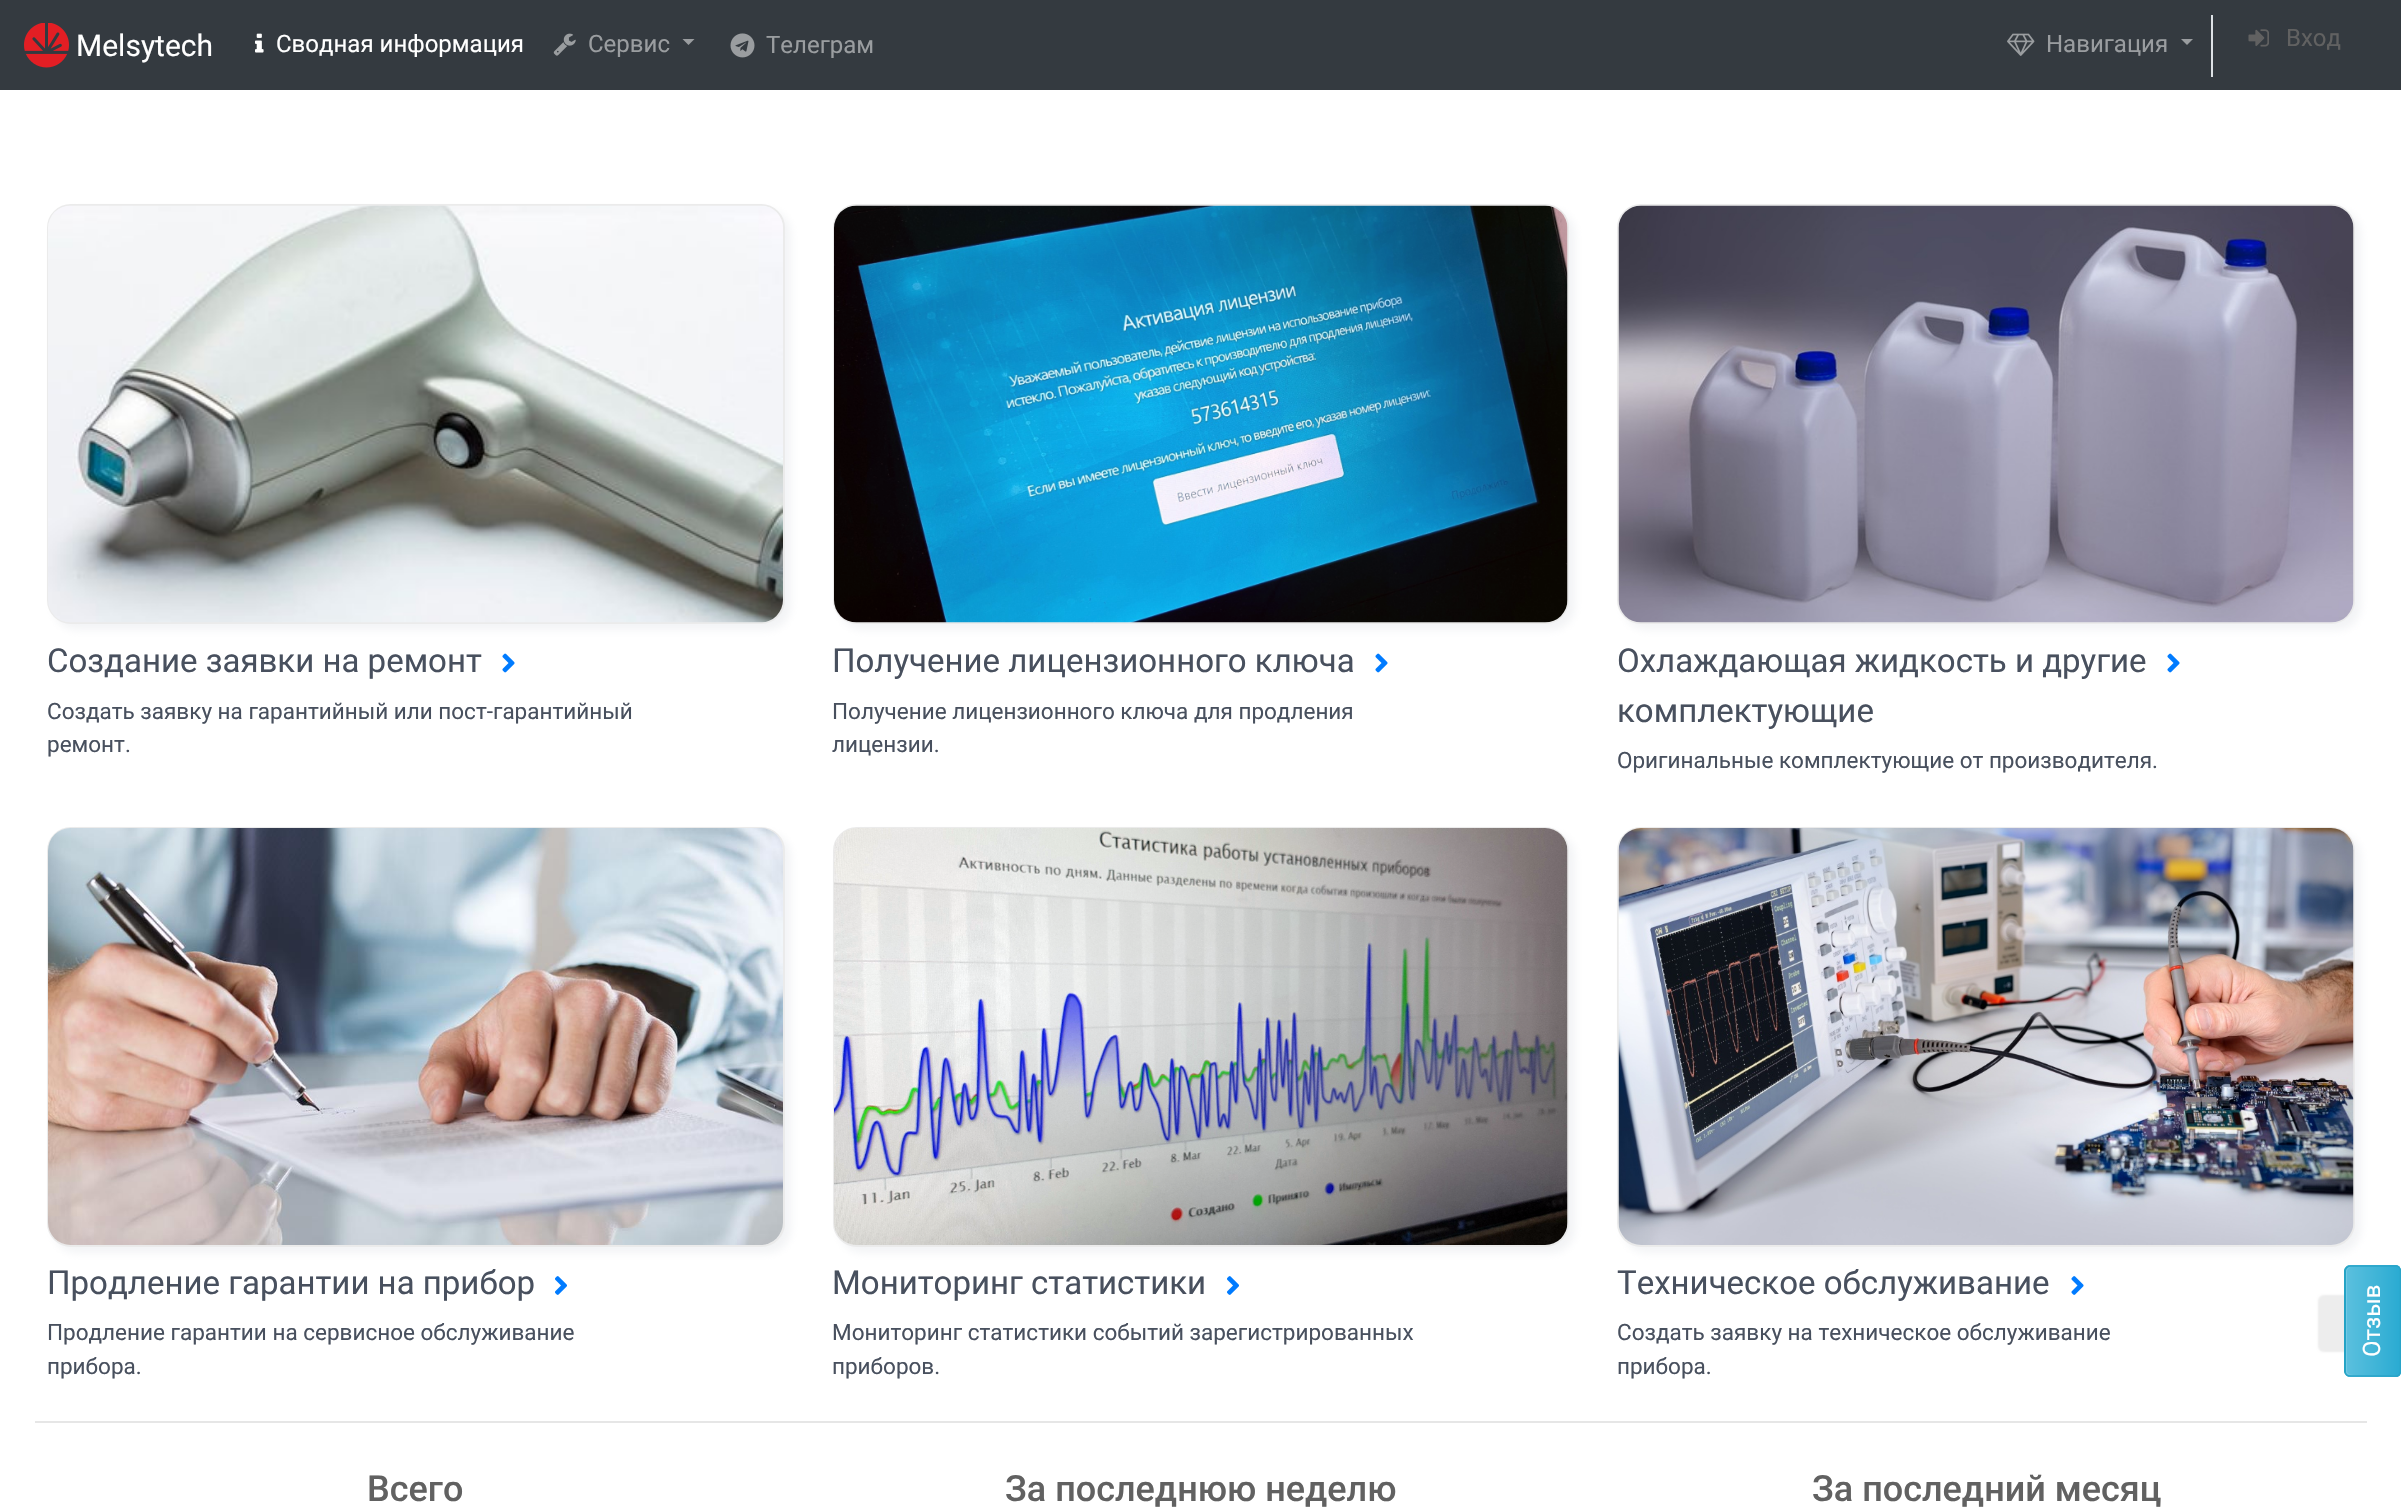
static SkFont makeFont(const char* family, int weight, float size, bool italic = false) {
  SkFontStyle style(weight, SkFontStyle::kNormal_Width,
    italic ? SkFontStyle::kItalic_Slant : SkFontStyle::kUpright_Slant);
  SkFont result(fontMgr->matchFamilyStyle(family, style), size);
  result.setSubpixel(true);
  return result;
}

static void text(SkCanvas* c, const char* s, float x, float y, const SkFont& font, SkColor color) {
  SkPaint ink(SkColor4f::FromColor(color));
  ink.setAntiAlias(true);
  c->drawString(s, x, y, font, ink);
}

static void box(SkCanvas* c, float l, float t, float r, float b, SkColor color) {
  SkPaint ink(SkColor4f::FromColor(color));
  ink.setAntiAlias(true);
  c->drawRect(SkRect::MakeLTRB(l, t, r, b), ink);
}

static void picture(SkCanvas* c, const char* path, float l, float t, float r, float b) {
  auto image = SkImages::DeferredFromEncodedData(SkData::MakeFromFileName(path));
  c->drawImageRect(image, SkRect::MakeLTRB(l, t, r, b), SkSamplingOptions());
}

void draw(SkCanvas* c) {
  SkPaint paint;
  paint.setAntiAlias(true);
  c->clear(0xffffffff);
  box(c, 0, 0, 2401, 90, 0xff343a40);
  picture(c, "img_01.png", 24, 23, 69, 68);
  SkFont face1 = makeFont("Roboto", 400, 30);
  text(c, "Melsytech", 76, 56, face1, 0xffffffff);
  picture(c, "img_02.png", 255, 33, 264, 53);
  SkFont face2 = makeFont("Roboto", 400, 24);
  text(c, "Сводная информация", 276, 52, face2, 0xffffffff);
  picture(c, "img_03.png", 553, 33, 576, 56);
  text(c, "Сервис", 588, 52, face2, 0xff9a9da0);
  paint.setColor(0xff9a9da0);
  c->drawPath(SkPathBuilder().moveTo(682.5f, 39).lineTo(694.5f, 39).lineTo(688.5f, 45).close().detach(), paint);
  picture(c, "img_04.png", 730, 33, 755, 58);
  text(c, "Телеграм", 766, 53, face2, 0xff9a9da0);
  picture(c, "img_05.png", 2007, 33, 2035, 56);
  text(c, "Навигация", 2046, 52, face2, 0xff9a9da0);
  c->drawPath(SkPathBuilder().moveTo(2181, 39).lineTo(2193, 39).lineTo(2187, 45).close().detach(), paint);
  box(c, 2211, 15, 2213, 77, 0xffdee2e6);
  picture(c, "img_06.png", 2248, 29, 2269, 47);
  text(c, "Вход", 2286, 46, face2, 0xff616161);
  paint.setColor(0x12000000);
  paint.setMaskFilter(SkMaskFilter::MakeBlur(kNormal_SkBlurStyle, 1));
  c->drawRoundRect(SkRect::MakeLTRB(2318, 1295, 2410, 1352), 6, 6, paint);
  paint.setMaskFilter(nullptr);
  paint.setColor(0x80e5e8ec);
  paint.setMaskFilter(SkMaskFilter::MakeBlur(kNormal_SkBlurStyle, 4.5f));
  c->drawRoundRect(SkRect::MakeLTRB(1623, 833, 2361, 1253), 24, 24, paint);
  paint.setMaskFilter(nullptr);
  paint.setColor(0xff17a2b8);
  c->drawPath(SkPathBuilder().moveTo(2344, 1371).lineTo(2344, 1271).cubicTo(2344, 1268, 2347, 1265, 2350, 1265).lineTo(2395, 1265).cubicTo(2399, 1265, 2401, 1268, 2401, 1271).lineTo(2401, 1371).cubicTo(2401, 1374, 2399, 1377, 2395, 1377).lineTo(2350, 1377).cubicTo(2347, 1377, 2344, 1374, 2344, 1371).close().detach(), paint);
  {
    const SkColor colors[] = {0xff5bc0de, 0xff2aabd2};
    const float stops[] = {0, 1};
    const SkPoint ends[] = {{2346, 1321}, {2400, 1321}};
    paint.setShader(SkGradientShader::MakeLinear(ends, colors, stops, 2, SkTileMode::kClamp));
    paint.setAlpha(255);
  }
  c->drawPath(SkPathBuilder().moveTo(2346, 1375).lineTo(2346, 1267).cubicTo(2347, 1266, 2349, 1265, 2350, 1265).lineTo(2396, 1265).cubicTo(2397, 1265, 2399, 1266, 2400, 1267).lineTo(2400, 1375).cubicTo(2399, 1376, 2397, 1377, 2396, 1377).lineTo(2350, 1377).cubicTo(2349, 1377, 2347, 1376, 2346, 1375).close().detach(), paint);
  paint.setShader(nullptr);
  paint.setColor(0x26ffffff);
  c->drawPath(SkPathBuilder().moveTo(2347, 1371).lineTo(2347, 1271).cubicTo(2347, 1269, 2350, 1267, 2352, 1267).lineTo(2396, 1267).lineTo(2366, 1267).cubicTo(2343, 1267, 2346, 1264, 2346, 1288).lineTo(2346, 1354).cubicTo(2346, 1379, 2343, 1375, 2366, 1375).lineTo(2388, 1375).cubicTo(2389, 1375, 2395, 1376, 2398, 1375).lineTo(2360, 1375).cubicTo(2358, 1375, 2347, 1376, 2347, 1371).close().detach(), paint);
  paint.setStyle(SkPaint::kStroke_Style);
  paint.setStrokeWidth(1.5f);
  paint.setColor(0xff28a4c9);
  c->drawPath(SkPathBuilder().moveTo(2345, 1371).lineTo(2345, 1271.5f).cubicTo(2345, 1268.5f, 2347.5f, 1266, 2350.5f, 1266).lineTo(2395.5f, 1266).cubicTo(2398.5f, 1266, 2400.5f, 1268.5f, 2400.5f, 1271.5f).lineTo(2400.5f, 1371).cubicTo(2400.5f, 1374, 2398.5f, 1376, 2395.5f, 1376).lineTo(2350.5f, 1376).cubicTo(2347.5f, 1376, 2345, 1374, 2345, 1371).close().detach(), paint);
  c->save();
  c->rotate(-90, 2380, 1357);
  text(c, "Отзыв", 2380, 1357, face2, 0xffffffff);
  c->restore();
  paint.setStyle(SkPaint::kFill_Style);
  paint.setColor(0x80e5e8ec);
  paint.setMaskFilter(SkMaskFilter::MakeBlur(kNormal_SkBlurStyle, 4.5f));
  c->drawRoundRect(SkRect::MakeLTRB(53, 210, 791, 630), 24, 24, paint);
  paint.setMaskFilter(nullptr);
  paint.setStyle(SkPaint::kStroke_Style);
  paint.setStrokeWidth(2);
  paint.setColor(0xffebebeb);
  c->drawRoundRect(SkRect::MakeLTRB(48, 205, 784, 623), 23, 23, paint);
  picture(c, "img_07.png", 48, 205, 783, 623);
  SkFont face3 = makeFont("Roboto", 400, 33);
  text(c, "Создание заявки на ремонт", 47, 672, face3, 0xff48505e);
  picture(c, "img_08.png", 502, 653, 515, 673);
  SkFont face4 = makeFont("Roboto", 400, 22.5f);
  text(c, "Создать заявку на гарантийный или пост-гарантийный", 47, 719, face4, 0xff48505e);
  text(c, "ремонт.", 47, 752, face4, 0xff48505e);
  paint.setStyle(SkPaint::kFill_Style);
  paint.setColor(0x80e5e8ec);
  paint.setMaskFilter(SkMaskFilter::MakeBlur(kNormal_SkBlurStyle, 4.5f));
  c->drawRoundRect(SkRect::MakeLTRB(839, 210, 1575, 630), 24, 24, paint);
  paint.setMaskFilter(nullptr);
  paint.setStyle(SkPaint::kStroke_Style);
  paint.setColor(0xffebebeb);
  c->drawRoundRect(SkRect::MakeLTRB(834, 205, 1568, 623), 23, 23, paint);
  picture(c, "img_09.png", 834, 205, 1568, 623);
  text(c, "Получение лицензионного ключа", 832, 672, face3, 0xff48505e);
  picture(c, "img_08.png", 1375, 653, 1388, 673);
  text(c, "Получение лицензионного ключа для продления", 832, 719, face4, 0xff48505e);
  text(c, "лицензии.", 832, 752, face4, 0xff48505e);
  paint.setStyle(SkPaint::kFill_Style);
  paint.setColor(0x80e5e8ec);
  paint.setMaskFilter(SkMaskFilter::MakeBlur(kNormal_SkBlurStyle, 4.5f));
  c->drawRoundRect(SkRect::MakeLTRB(1623, 210, 2361, 630), 24, 24, paint);
  paint.setMaskFilter(nullptr);
  paint.setStyle(SkPaint::kStroke_Style);
  paint.setColor(0xffebebeb);
  c->drawRoundRect(SkRect::MakeLTRB(1618, 205, 2354, 623), 23, 23, paint);
  picture(c, "img_10.png", 1618, 205, 2354, 623);
  text(c, "Охлаждающая жидкость и другие", 1617, 672, face3, 0xff48505e);
  picture(c, "img_08.png", 2167, 653, 2180, 673);
  text(c, "комплектующие", 1617, 722, face3, 0xff48505e);
  text(c, "Оригинальные комплектующие от производителя.", 1617, 768, face4, 0xff48505e);
  paint.setStyle(SkPaint::kFill_Style);
  paint.setColor(0x80e5e8ec);
  paint.setMaskFilter(SkMaskFilter::MakeBlur(kNormal_SkBlurStyle, 4.5f));
  c->drawRoundRect(SkRect::MakeLTRB(53, 833, 791, 1253), 24, 24, paint);
  paint.setMaskFilter(nullptr);
  paint.setStyle(SkPaint::kStroke_Style);
  paint.setColor(0xffebebeb);
  c->drawRoundRect(SkRect::MakeLTRB(48, 828, 784, 1246), 23, 23, paint);
  picture(c, "img_11.png", 48, 828, 783, 1245);
  text(c, "Продление гарантии на прибор", 47, 1294, face3, 0xff48505e);
  picture(c, "img_12.png", 555, 1276, 567, 1295);
  text(c, "Продление гарантии на сервисное обслуживание", 47, 1340, face4, 0xff48505e);
  text(c, "прибора.", 47, 1374, face4, 0xff48505e);
  paint.setStyle(SkPaint::kFill_Style);
  paint.setColor(0x80e5e8ec);
  paint.setMaskFilter(SkMaskFilter::MakeBlur(kNormal_SkBlurStyle, 4.5f));
  c->drawRoundRect(SkRect::MakeLTRB(839, 833, 1575, 1253), 24, 24, paint);
  paint.setMaskFilter(nullptr);
  paint.setStyle(SkPaint::kStroke_Style);
  paint.setColor(0xffebebeb);
  c->drawRoundRect(SkRect::MakeLTRB(834, 828, 1568, 1246), 23, 23, paint);
  picture(c, "img_13.png", 834, 828, 1568, 1245);
  text(c, "Мониторинг статистики", 832, 1294, face3, 0xff48505e);
  picture(c, "img_12.png", 1227, 1276, 1239, 1295);
  text(c, "Мониторинг статистики событий зарегистрированных", 832, 1340, face4, 0xff48505e);
  text(c, "приборов.", 832, 1374, face4, 0xff48505e);
  c->drawRoundRect(SkRect::MakeLTRB(1618, 828, 2354, 1246), 23, 23, paint);
  picture(c, "img_14.png", 1618, 828, 2354, 1245);
  text(c, "Техническое обслуживание", 1617, 1294, face3, 0xff48505e);
  picture(c, "img_15.png", 2071, 1276, 2084, 1295);
  text(c, "Создать заявку на техническое обслуживание", 1617, 1340, face4, 0xff48505e);
  text(c, "прибора.", 1617, 1374, face4, 0xff48505e);
  box(c, 35, 1421, 2367, 1423, 0xffe6e6e6);
  SkFont face5 = makeFont("Roboto", 500, 36);
  text(c, "Всего", 367, 1501, face5, 0xff616161);
  text(c, "За последнюю неделю", 1005, 1501, face5, 0xff616161);
  text(c, "За последний месяц", 1812, 1501, face5, 0xff616161);
}
